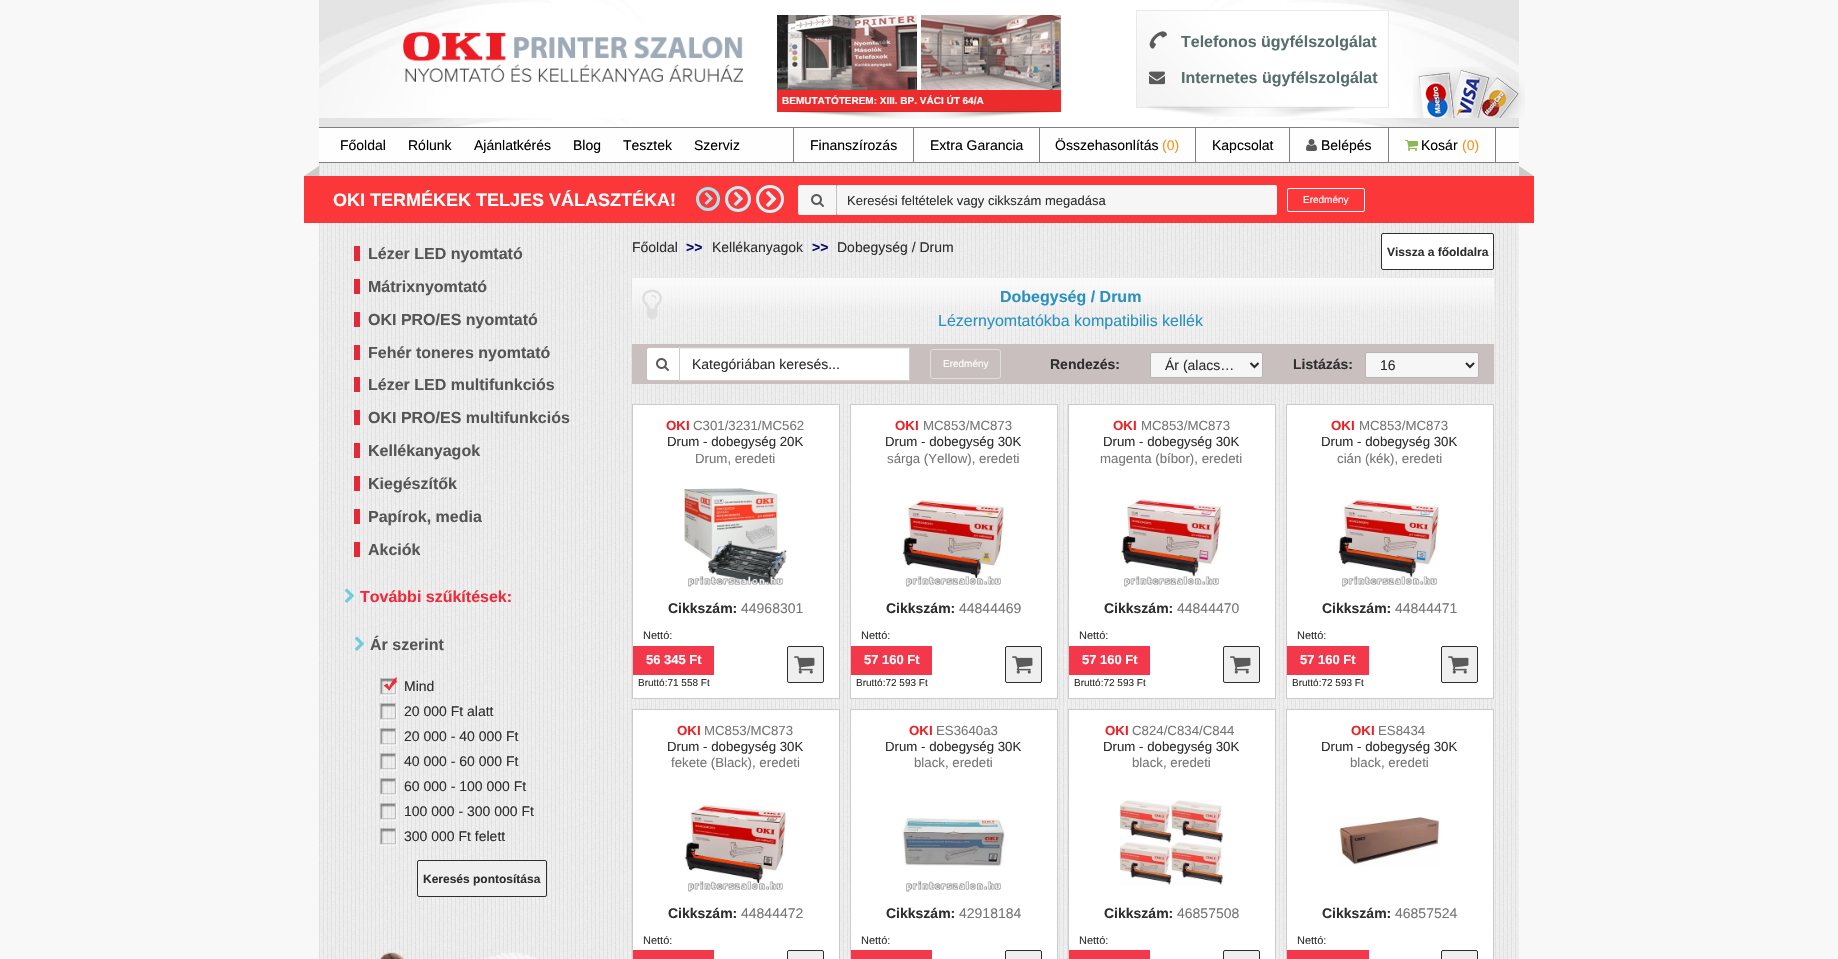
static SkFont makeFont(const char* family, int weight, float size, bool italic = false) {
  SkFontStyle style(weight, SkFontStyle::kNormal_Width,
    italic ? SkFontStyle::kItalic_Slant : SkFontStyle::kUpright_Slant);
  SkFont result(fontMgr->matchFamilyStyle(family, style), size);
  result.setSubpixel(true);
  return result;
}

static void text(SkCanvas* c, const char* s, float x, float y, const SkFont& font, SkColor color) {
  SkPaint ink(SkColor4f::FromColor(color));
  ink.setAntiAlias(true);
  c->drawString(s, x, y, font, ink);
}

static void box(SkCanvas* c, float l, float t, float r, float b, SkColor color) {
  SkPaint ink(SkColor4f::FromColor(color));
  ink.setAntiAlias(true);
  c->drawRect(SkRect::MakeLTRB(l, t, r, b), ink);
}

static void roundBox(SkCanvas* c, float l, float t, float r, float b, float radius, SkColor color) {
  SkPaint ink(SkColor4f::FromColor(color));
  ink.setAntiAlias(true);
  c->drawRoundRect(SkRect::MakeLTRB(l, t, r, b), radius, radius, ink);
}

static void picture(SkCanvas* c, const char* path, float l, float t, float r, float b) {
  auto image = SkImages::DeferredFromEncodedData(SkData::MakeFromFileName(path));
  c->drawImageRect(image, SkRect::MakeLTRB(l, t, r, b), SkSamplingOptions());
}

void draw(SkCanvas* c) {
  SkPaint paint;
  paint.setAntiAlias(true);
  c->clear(0xfff8f8f8);
  picture(c, "img_01.png", 319, 163, 1519, 959);
  picture(c, "img_02.png", 319, 0, 1519, 127);
  picture(c, "img_03.png", 403, 32, 743, 82);
  {
    const SkColor colors[] = {0xfff2f2f2, 0xffffffff, 0xffffffff};
    const float stops[] = {0, 0.47f, 1};
    const SkPoint ends[] = {{1176, 146}, {1349, -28}};
    paint.setShader(SkGradientShader::MakeLinear(ends, colors, stops, 3, SkTileMode::kClamp));
    paint.setAlpha(255);
  }
  c->drawRect(SkRect::MakeLTRB(1137, 11, 1388, 107), paint);
  paint.setStyle(SkPaint::kStroke_Style);
  paint.setStrokeWidth(1);
  paint.setShader(nullptr);
  paint.setColor(0xffe9e9e9);
  c->drawRect(SkRect::MakeLTRB(1136.5f, 10.5f, 1388.5f, 107.5f), paint);
  picture(c, "img_04.png", 1149, 31, 1167, 49);
  SkFont face1 = makeFont("Liberation Sans", 700, 16);
  text(c, "Telefonos ügyfélszolgálat", 1181, 47, face1, 0xff566e6c);
  picture(c, "img_05.png", 1149, 71, 1165, 85);
  text(c, "Internetes ügyfélszolgálat", 1181, 83, face1, 0xff566e6c);
  picture(c, "img_06.png", 1147, 106, 1355, 117);
  picture(c, "img_07.png", 1413, 67, 1525, 118);
  picture(c, "img_08.png", 777, 15, 917, 90);
  picture(c, "img_09.png", 921, 15, 1061, 90);
  box(c, 777, 90, 1061, 112, 0xffec2b2c);
  SkFont face2 = makeFont("Liberation Sans", 700, 10);
  text(c, "BEMUTATÓTEREM: XIII. BP. VÁCI ÚT 64/A", 782, 104, face2, 0xfffefefe);
  picture(c, "img_10.png", 783, 111, 1060, 119);
  box(c, 319, 128, 1519, 162, 0xfffefefe);
  box(c, 319, 127, 1519, 128, 0xff808080);
  box(c, 319, 162, 1519, 163, 0xff808080);
  SkFont face3 = makeFont("Liberation Sans", 400, 14);
  text(c, "Főoldal", 340, 150, face3, 0xff000000);
  text(c, "Rólunk", 408, 150, face3, 0xff000000);
  text(c, "Ajánlatkérés", 474, 150, face3, 0xff000000);
  text(c, "Blog", 573, 150, face3, 0xff000000);
  text(c, "Tesztek", 623, 150, face3, 0xff000000);
  text(c, "Szerviz", 694, 150, face3, 0xff000000);
  box(c, 913, 128, 914, 162, 0xff808080);
  box(c, 793, 128, 794, 162, 0xff808080);
  text(c, "Finanszírozás", 810, 150, face3, 0xff000000);
  box(c, 1039, 128, 1040, 162, 0xff808080);
  text(c, "Extra Garancia", 930, 150, face3, 0xff000000);
  box(c, 1195, 128, 1196, 162, 0xff808080);
  text(c, "Összehasonlítás", 1055, 150, face3, 0xff000000);
  text(c, "(0)", 1162, 150, face3, 0xfff79421);
  box(c, 1289, 128, 1290, 162, 0xff808080);
  text(c, "Kapcsolat", 1212, 150, face3, 0xff000000);
  box(c, 1388, 128, 1389, 162, 0xff808080);
  picture(c, "img_11.png", 1306, 139, 1317, 151);
  text(c, "Belépés", 1321, 150, face3, 0xff000000);
  box(c, 1495, 128, 1496, 162, 0xff808080);
  picture(c, "img_12.png", 1405, 140, 1418, 151);
  text(c, "Kosár", 1421, 150, face3, 0xff000000);
  text(c, "(0)", 1462, 150, face3, 0xfff79421);
  box(c, 304, 176, 1534, 223, 0xfffc3739);
  paint.setStyle(SkPaint::kFill_Style);
  paint.setColor(0xffcbcbcb);
  c->drawPath(SkPathBuilder().moveTo(319, 176).lineTo(304, 176).lineTo(319, 166).close().detach(), paint);
  c->drawPath(SkPathBuilder().moveTo(1519, 176).lineTo(1519, 166).lineTo(1534, 176).close().detach(), paint);
  SkFont face4 = makeFont("Liberation Sans", 700, 18);
  text(c, "OKI TERMÉKEK TELJES VÁLASZTÉKA!", 333, 206, face4, 0xfffefefe);
  paint.setStyle(SkPaint::kStroke_Style);
  paint.setStrokeWidth(3);
  paint.setColor(0xffade1ea);
  c->drawCircle(708, 199, 10.5f, paint);
  picture(c, "img_13.png", 704, 192, 713, 205);
  paint.setColor(0xffc7eaf1);
  c->drawCircle(738, 199, 11.5f, paint);
  picture(c, "img_14.png", 733, 191, 743, 206);
  paint.setColor(0xffdbf0f5);
  c->drawCircle(770, 199, 12.5f, paint);
  picture(c, "img_15.png", 765, 190, 777, 207);
  paint.setStyle(SkPaint::kFill_Style);
  paint.setColor(0xfff6f6f6);
  c->drawPath(SkPathBuilder().moveTo(800, 185).lineTo(836, 185).lineTo(836, 215).lineTo(800, 215).cubicTo(799, 215, 798, 214, 798, 213).lineTo(798, 187).cubicTo(798, 186, 799, 185, 800, 185).close().detach(), paint);
  picture(c, "img_16.png", 811, 194, 824, 207);
  roundBox(c, 836, 185, 1277, 215, 2, 0xfff6f6f6);
  box(c, 836, 186, 837, 214, 0xffc8c0c5);
  SkFont face5 = makeFont("Liberation Sans", 400, 13);
  text(c, "Keresési feltételek vagy cikkszám megadása", 847, 205, face5, 0xff2e2e2e);
  paint.setStyle(SkPaint::kStroke_Style);
  paint.setStrokeWidth(1);
  paint.setColor(0xfffefefe);
  c->drawRoundRect(SkRect::MakeLTRB(1287.5f, 188.5f, 1364.5f, 211.5f), 1.5f, 1.5f, paint);
  SkFont face6 = makeFont("Liberation Sans", 400, 10);
  text(c, "Eredmény", 1303, 203, face6, 0xfffefefe);
  box(c, 354, 246, 360, 261, 0xffe12938);
  text(c, "Lézer LED nyomtató", 368, 259, face1, 0xff555555);
  box(c, 354, 279, 360, 294, 0xffe12938);
  text(c, "Mátrixnyomtató", 368, 292, face1, 0xff555555);
  box(c, 354, 312, 360, 327, 0xffe12938);
  text(c, "OKI PRO/ES nyomtató", 368, 325, face1, 0xff555555);
  box(c, 354, 345, 360, 360, 0xffe12938);
  text(c, "Fehér toneres nyomtató", 368, 358, face1, 0xff555555);
  box(c, 354, 377, 360, 392, 0xffe12938);
  text(c, "Lézer LED multifunkciós", 368, 390, face1, 0xff555555);
  box(c, 354, 410, 360, 425, 0xffe12938);
  text(c, "OKI PRO/ES multifunkciós", 368, 423, face1, 0xff555555);
  box(c, 354, 443, 360, 458, 0xffe12938);
  text(c, "Kellékanyagok", 368, 456, face1, 0xff555555);
  box(c, 354, 476, 360, 491, 0xffe12938);
  text(c, "Kiegészítők", 368, 489, face1, 0xff555555);
  box(c, 354, 509, 360, 524, 0xffe12938);
  text(c, "Papírok, media", 368, 522, face1, 0xff555555);
  box(c, 354, 542, 360, 557, 0xffe12938);
  text(c, "Akciók", 368, 555, face1, 0xff555555);
  picture(c, "img_17.png", 344, 588, 354, 603);
  text(c, "További szűkítések:", 360, 602, face1, 0xfff12938);
  picture(c, "img_18.png", 354, 636, 364, 651);
  text(c, "Ár szerint", 370, 650, face1, 0xff555555);
  picture(c, "img_19.png", 380, 677, 397, 696);
  text(c, "Mind", 404, 691, face3, 0xff2e2e2e);
  picture(c, "img_20.png", 380, 703, 397, 721);
  text(c, "20 000 Ft alatt", 404, 716, face3, 0xff2e2e2e);
  picture(c, "img_21.png", 380, 728, 397, 746);
  text(c, "20 000 - 40 000 Ft", 404, 741, face3, 0xff2e2e2e);
  picture(c, "img_22.png", 380, 753, 397, 771);
  text(c, "40 000 - 60 000 Ft", 404, 766, face3, 0xff2e2e2e);
  picture(c, "img_23.png", 380, 778, 397, 796);
  text(c, "60 000 - 100 000 Ft", 404, 791, face3, 0xff2e2e2e);
  picture(c, "img_20.png", 380, 803, 397, 821);
  text(c, "100 000 - 300 000 Ft", 404, 816, face3, 0xff2e2e2e);
  picture(c, "img_21.png", 380, 828, 397, 846);
  text(c, "300 000 Ft felett", 404, 841, face3, 0xff2e2e2e);
  paint.setStyle(SkPaint::kFill_Style);
  paint.setColor(0xffefefef);
  c->drawRoundRect(SkRect::MakeLTRB(417.5f, 860.5f, 546.5f, 896.5f), 1.5f, 1.5f, paint);
  paint.setStyle(SkPaint::kStroke_Style);
  paint.setColor(0xff2e2e2e);
  c->drawRoundRect(SkRect::MakeLTRB(417.5f, 860.5f, 546.5f, 896.5f), 1.5f, 1.5f, paint);
  SkFont face7 = makeFont("Liberation Sans", 700, 12);
  text(c, "Keresés pontosítása", 423, 883, face7, 0xff2e2e2e);
  picture(c, "img_24.png", 380, 952, 537, 959);
  text(c, "Főoldal", 632, 252, face3, 0xff2e2e2e);
  SkFont face8 = makeFont("Liberation Sans", 700, 14);
  text(c, ">>", 686, 252, face8, 0xff0d0d6d);
  text(c, "Kellékanyagok", 712, 252, face3, 0xff2e2e2e);
  text(c, ">>", 812, 252, face8, 0xff0d0d6d);
  text(c, "Dobegység / Drum", 837, 252, face3, 0xff2e2e2e);
  paint.setStyle(SkPaint::kFill_Style);
  paint.setColor(0xffffffff);
  c->drawRoundRect(SkRect::MakeLTRB(1381.5f, 233.5f, 1493.5f, 269.5f), 1.5f, 1.5f, paint);
  paint.setStyle(SkPaint::kStroke_Style);
  paint.setColor(0xff2e2e2e);
  c->drawRoundRect(SkRect::MakeLTRB(1381.5f, 233.5f, 1493.5f, 269.5f), 1.5f, 1.5f, paint);
  text(c, "Vissza a főoldalra", 1387, 256, face7, 0xff2e2e2e);
  picture(c, "img_25.png", 642, 289, 662, 320);
  text(c, "Dobegység / Drum", 1000, 302, face1, 0xff2a91bf);
  SkFont face9 = makeFont("Liberation Sans", 400, 16);
  text(c, "Lézernyomtatókba kompatibilis kellék", 938, 326, face9, 0xff2a91bf);
  box(c, 632, 344, 1494, 384, 0xffc9bfbf);
  paint.setStyle(SkPaint::kFill_Style);
  paint.setColor(0xffffffff);
  c->drawPath(SkPathBuilder().moveTo(649, 348).lineTo(679, 348).lineTo(679, 380).lineTo(649, 380).cubicTo(648, 380, 647, 379, 647, 378).lineTo(647, 350).cubicTo(647, 349, 648, 348, 649, 348).close().detach(), paint);
  picture(c, "img_26.png", 656, 358, 669, 371);
  c->drawPath(SkPathBuilder().moveTo(679, 347).lineTo(908, 347).cubicTo(909, 347, 910, 348, 910, 349).lineTo(910, 379).cubicTo(910, 380, 909, 381, 908, 381).lineTo(679, 381).close().detach(), paint);
  paint.setColor(0xffececec);
  c->drawPath(SkPathBuilder().moveTo(680, 349).lineTo(909, 349).lineTo(909, 350).cubicTo(909, 349, 909, 348, 908, 348).lineTo(680, 348).close().detach(), paint);
  paint.setStyle(SkPaint::kStroke_Style);
  paint.setColor(0xffcccccc);
  c->drawPath(SkPathBuilder().moveTo(679.5f, 347.5f).lineTo(908, 347.5f).cubicTo(909, 347.5f, 909.5f, 348, 909.5f, 349).lineTo(909.5f, 379).cubicTo(909.5f, 380, 909, 380.5f, 908, 380.5f).lineTo(679.5f, 380.5f).close().detach(), paint);
  text(c, "Kategóriában keresés...", 692, 369, face3, 0xff2e2e2e);
  paint.setColor(0xffdedede);
  c->drawRoundRect(SkRect::MakeLTRB(930.5f, 349.5f, 1000.5f, 378.5f), 2.5f, 2.5f, paint);
  text(c, "Eredmény", 943, 367, face6, 0xfffefefe);
  text(c, "Rendezés:", 1050, 369, face8, 0xff2e2e2e);
  paint.setStyle(SkPaint::kFill_Style);
  paint.setColor(0xfff6f6f6);
  c->drawRoundRect(SkRect::MakeLTRB(1150.5f, 352.5f, 1262.5f, 377.5f), 1.5f, 1.5f, paint);
  paint.setStyle(SkPaint::kStroke_Style);
  paint.setColor(0xffb5b5b5);
  c->drawRoundRect(SkRect::MakeLTRB(1150.5f, 352.5f, 1262.5f, 377.5f), 1.5f, 1.5f, paint);
  paint.setStrokeWidth(2);
  paint.setColor(0xff2a2a2a);
  c->drawPath(SkPathBuilder().moveTo(1250.5f, 363).lineTo(1254.5f, 367).lineTo(1258.5f, 363).detach(), paint);
  text(c, "Ár (alacs…", 1165, 370, face3, 0xff2e2e2e);
  text(c, "Listázás:", 1293, 369, face8, 0xff2e2e2e);
  paint.setStyle(SkPaint::kFill_Style);
  paint.setColor(0xfff6f6f6);
  c->drawRoundRect(SkRect::MakeLTRB(1365.5f, 352.5f, 1478.5f, 377.5f), 1.5f, 1.5f, paint);
  paint.setStyle(SkPaint::kStroke_Style);
  paint.setStrokeWidth(1);
  paint.setColor(0xffb5b5b5);
  c->drawRoundRect(SkRect::MakeLTRB(1365.5f, 352.5f, 1478.5f, 377.5f), 1.5f, 1.5f, paint);
  paint.setStrokeWidth(2);
  paint.setColor(0xff2a2a2a);
  c->drawPath(SkPathBuilder().moveTo(1466, 363).lineTo(1470, 367).lineTo(1474, 363).detach(), paint);
  text(c, "16", 1380, 370, face3, 0xff2e2e2e);
  paint.setStyle(SkPaint::kFill_Style);
  paint.setColor(0xffffffff);
  c->drawRect(SkRect::MakeLTRB(632.5f, 404.5f, 839.5f, 698.5f), paint);
  paint.setStyle(SkPaint::kStroke_Style);
  paint.setStrokeWidth(1);
  paint.setColor(0xffcbcbcb);
  c->drawRect(SkRect::MakeLTRB(632.5f, 404.5f, 839.5f, 698.5f), paint);
  SkFont face10 = makeFont("Liberation Sans", 700, 13.25f);
  text(c, "OKI", 666, 430, face10, 0xffed2026);
  SkFont face11 = makeFont("Liberation Sans", 400, 13.25f);
  text(c, "C301/3231/MC562", 693, 430, face11, 0xff767676);
  text(c, "Drum - dobegység 20K", 667, 446, face11, 0xff2e2e2e);
  text(c, "Drum, eredeti", 695, 463, face11, 0xff767676);
  picture(c, "img_27.png", 684, 488, 787, 587);
  text(c, "Cikkszám:", 668, 613, face8, 0xff2e2e2e);
  text(c, "44968301", 741, 613, face3, 0xff767676);
  SkFont face12 = makeFont("Liberation Sans", 400, 11);
  text(c, "Nettó:", 643, 639, face12, 0xff2e2e2e);
  box(c, 633, 646, 714, 675, 0xfff4384c);
  SkFont face13 = makeFont("Liberation Sans", 700, 13);
  text(c, "56 345 Ft", 646, 664, face13, 0xfffefefe);
  text(c, "Bruttó:71 558 Ft", 638, 686, face6, 0xff2e2e2e);
  paint.setStyle(SkPaint::kFill_Style);
  paint.setColor(0xffefefef);
  c->drawRoundRect(SkRect::MakeLTRB(787.5f, 646.5f, 823.5f, 682.5f), 1.5f, 1.5f, paint);
  paint.setStyle(SkPaint::kStroke_Style);
  paint.setColor(0xff2e2e2e);
  c->drawRoundRect(SkRect::MakeLTRB(787.5f, 646.5f, 823.5f, 682.5f), 1.5f, 1.5f, paint);
  picture(c, "img_28.png", 794, 656, 815, 674);
  paint.setStyle(SkPaint::kFill_Style);
  paint.setColor(0xffffffff);
  c->drawRect(SkRect::MakeLTRB(850.5f, 404.5f, 1057.5f, 698.5f), paint);
  paint.setStyle(SkPaint::kStroke_Style);
  paint.setColor(0xffcbcbcb);
  c->drawRect(SkRect::MakeLTRB(850.5f, 404.5f, 1057.5f, 698.5f), paint);
  text(c, "OKI", 895, 430, face10, 0xffed2026);
  text(c, "MC853/MC873", 923, 430, face11, 0xff767676);
  text(c, "Drum - dobegység 30K", 885, 446, face11, 0xff2e2e2e);
  text(c, "sárga (Yellow), eredeti", 887, 463, face11, 0xff767676);
  picture(c, "img_29.png", 902, 500, 1004, 587);
  text(c, "Cikkszám:", 886, 613, face8, 0xff2e2e2e);
  text(c, "44844469", 959, 613, face3, 0xff767676);
  text(c, "Nettó:", 861, 639, face12, 0xff2e2e2e);
  box(c, 851, 646, 932, 675, 0xfff4384c);
  text(c, "57 160 Ft", 864, 664, face13, 0xfffefefe);
  text(c, "Bruttó:72 593 Ft", 856, 686, face6, 0xff2e2e2e);
  paint.setStyle(SkPaint::kFill_Style);
  paint.setColor(0xffefefef);
  c->drawRoundRect(SkRect::MakeLTRB(1005.5f, 646.5f, 1041.5f, 682.5f), 1.5f, 1.5f, paint);
  paint.setStyle(SkPaint::kStroke_Style);
  paint.setColor(0xff2e2e2e);
  c->drawRoundRect(SkRect::MakeLTRB(1005.5f, 646.5f, 1041.5f, 682.5f), 1.5f, 1.5f, paint);
  picture(c, "img_28.png", 1012, 656, 1033, 674);
  paint.setStyle(SkPaint::kFill_Style);
  paint.setColor(0xffffffff);
  c->drawRect(SkRect::MakeLTRB(1068.5f, 404.5f, 1275.5f, 698.5f), paint);
  paint.setStyle(SkPaint::kStroke_Style);
  paint.setColor(0xffcbcbcb);
  c->drawRect(SkRect::MakeLTRB(1068.5f, 404.5f, 1275.5f, 698.5f), paint);
  text(c, "OKI", 1113, 430, face10, 0xffed2026);
  text(c, "MC853/MC873", 1141, 430, face11, 0xff767676);
  text(c, "Drum - dobegység 30K", 1103, 446, face11, 0xff2e2e2e);
  text(c, "magenta (bíbor), eredeti", 1100, 463, face11, 0xff767676);
  picture(c, "img_30.png", 1121, 499, 1222, 587);
  text(c, "Cikkszám:", 1104, 613, face8, 0xff2e2e2e);
  text(c, "44844470", 1177, 613, face3, 0xff767676);
  text(c, "Nettó:", 1079, 639, face12, 0xff2e2e2e);
  box(c, 1069, 646, 1150, 675, 0xfff4384c);
  text(c, "57 160 Ft", 1082, 664, face13, 0xfffefefe);
  text(c, "Bruttó:72 593 Ft", 1074, 686, face6, 0xff2e2e2e);
  paint.setStyle(SkPaint::kFill_Style);
  paint.setColor(0xffefefef);
  c->drawRoundRect(SkRect::MakeLTRB(1223.5f, 646.5f, 1259.5f, 682.5f), 1.5f, 1.5f, paint);
  paint.setStyle(SkPaint::kStroke_Style);
  paint.setColor(0xff2e2e2e);
  c->drawRoundRect(SkRect::MakeLTRB(1223.5f, 646.5f, 1259.5f, 682.5f), 1.5f, 1.5f, paint);
  picture(c, "img_28.png", 1230, 656, 1251, 674);
  paint.setStyle(SkPaint::kFill_Style);
  paint.setColor(0xffffffff);
  c->drawRect(SkRect::MakeLTRB(1286.5f, 404.5f, 1493.5f, 698.5f), paint);
  paint.setStyle(SkPaint::kStroke_Style);
  paint.setColor(0xffcbcbcb);
  c->drawRect(SkRect::MakeLTRB(1286.5f, 404.5f, 1493.5f, 698.5f), paint);
  text(c, "OKI", 1331, 430, face10, 0xffed2026);
  text(c, "MC853/MC873", 1359, 430, face11, 0xff767676);
  text(c, "Drum - dobegység 30K", 1321, 446, face11, 0xff2e2e2e);
  text(c, "cián (kék), eredeti", 1337, 463, face11, 0xff767676);
  picture(c, "img_31.png", 1338, 499, 1440, 587);
  text(c, "Cikkszám:", 1322, 613, face8, 0xff2e2e2e);
  text(c, "44844471", 1395, 613, face3, 0xff767676);
  text(c, "Nettó:", 1297, 639, face12, 0xff2e2e2e);
  box(c, 1287, 646, 1369, 675, 0xfff4384c);
  text(c, "57 160 Ft", 1300, 664, face13, 0xfffefefe);
  text(c, "Bruttó:72 593 Ft", 1292, 686, face6, 0xff2e2e2e);
  paint.setStyle(SkPaint::kFill_Style);
  paint.setColor(0xffefefef);
  c->drawRoundRect(SkRect::MakeLTRB(1441.5f, 646.5f, 1477.5f, 682.5f), 1.5f, 1.5f, paint);
  paint.setStyle(SkPaint::kStroke_Style);
  paint.setColor(0xff2e2e2e);
  c->drawRoundRect(SkRect::MakeLTRB(1441.5f, 646.5f, 1477.5f, 682.5f), 1.5f, 1.5f, paint);
  picture(c, "img_28.png", 1448, 656, 1469, 674);
  paint.setStyle(SkPaint::kFill_Style);
  paint.setColor(0xffffffff);
  c->drawRect(SkRect::MakeLTRB(632.5f, 709.5f, 839.5f, 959.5f), paint);
  paint.setStyle(SkPaint::kStroke_Style);
  paint.setColor(0xffcbcbcb);
  c->drawRect(SkRect::MakeLTRB(632.5f, 709.5f, 839.5f, 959.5f), paint);
  text(c, "OKI", 677, 735, face10, 0xffed2026);
  text(c, "MC853/MC873", 704, 735, face11, 0xff767676);
  text(c, "Drum - dobegység 30K", 667, 751, face11, 0xff2e2e2e);
  text(c, "fekete (Black), eredeti", 671, 767, face11, 0xff767676);
  picture(c, "img_32.png", 684, 805, 786, 892);
  text(c, "Cikkszám:", 668, 918, face8, 0xff2e2e2e);
  text(c, "44844472", 741, 918, face3, 0xff767676);
  text(c, "Nettó:", 643, 944, face12, 0xff2e2e2e);
  box(c, 633, 950, 714, 959, 0xfff4384c);
  paint.setStyle(SkPaint::kFill_Style);
  paint.setColor(0xffefefef);
  c->drawRoundRect(SkRect::MakeLTRB(787.5f, 950.5f, 823.5f, 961.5f), 1.5f, 1.5f, paint);
  paint.setStyle(SkPaint::kStroke_Style);
  paint.setColor(0xff2e2e2e);
  c->drawRoundRect(SkRect::MakeLTRB(787.5f, 950.5f, 823.5f, 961.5f), 1.5f, 1.5f, paint);
  paint.setStyle(SkPaint::kFill_Style);
  paint.setColor(0xffffffff);
  c->drawRect(SkRect::MakeLTRB(850.5f, 709.5f, 1057.5f, 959.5f), paint);
  paint.setStyle(SkPaint::kStroke_Style);
  paint.setColor(0xffcbcbcb);
  c->drawRect(SkRect::MakeLTRB(850.5f, 709.5f, 1057.5f, 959.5f), paint);
  text(c, "OKI", 909, 735, face10, 0xffed2026);
  text(c, "ES3640a3", 936, 735, face11, 0xff767676);
  text(c, "Drum - dobegység 30K", 885, 751, face11, 0xff2e2e2e);
  text(c, "black, eredeti", 914, 767, face11, 0xff767676);
  picture(c, "img_33.png", 902, 818, 1005, 892);
  text(c, "Cikkszám:", 886, 918, face8, 0xff2e2e2e);
  text(c, "42918184", 959, 918, face3, 0xff767676);
  text(c, "Nettó:", 861, 944, face12, 0xff2e2e2e);
  box(c, 851, 950, 932, 959, 0xfff4384c);
  paint.setStyle(SkPaint::kFill_Style);
  paint.setColor(0xffefefef);
  c->drawRoundRect(SkRect::MakeLTRB(1005.5f, 950.5f, 1041.5f, 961.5f), 1.5f, 1.5f, paint);
  paint.setStyle(SkPaint::kStroke_Style);
  paint.setColor(0xff2e2e2e);
  c->drawRoundRect(SkRect::MakeLTRB(1005.5f, 950.5f, 1041.5f, 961.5f), 1.5f, 1.5f, paint);
  paint.setStyle(SkPaint::kFill_Style);
  paint.setColor(0xffffffff);
  c->drawRect(SkRect::MakeLTRB(1068.5f, 709.5f, 1275.5f, 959.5f), paint);
  paint.setStyle(SkPaint::kStroke_Style);
  paint.setColor(0xffcbcbcb);
  c->drawRect(SkRect::MakeLTRB(1068.5f, 709.5f, 1275.5f, 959.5f), paint);
  text(c, "OKI", 1105, 735, face10, 0xffed2026);
  text(c, "C824/C834/C844", 1132, 735, face11, 0xff767676);
  text(c, "Drum - dobegység 30K", 1103, 751, face11, 0xff2e2e2e);
  text(c, "black, eredeti", 1132, 767, face11, 0xff767676);
  picture(c, "img_34.png", 1120, 800, 1223, 885);
  text(c, "Cikkszám:", 1104, 918, face8, 0xff2e2e2e);
  text(c, "46857508", 1177, 918, face3, 0xff767676);
  text(c, "Nettó:", 1079, 944, face12, 0xff2e2e2e);
  box(c, 1069, 950, 1150, 959, 0xfff4384c);
  paint.setStyle(SkPaint::kFill_Style);
  paint.setColor(0xffefefef);
  c->drawRoundRect(SkRect::MakeLTRB(1223.5f, 950.5f, 1259.5f, 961.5f), 1.5f, 1.5f, paint);
  paint.setStyle(SkPaint::kStroke_Style);
  paint.setColor(0xff2e2e2e);
  c->drawRoundRect(SkRect::MakeLTRB(1223.5f, 950.5f, 1259.5f, 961.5f), 1.5f, 1.5f, paint);
  paint.setStyle(SkPaint::kFill_Style);
  paint.setColor(0xffffffff);
  c->drawRect(SkRect::MakeLTRB(1286.5f, 709.5f, 1493.5f, 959.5f), paint);
  paint.setStyle(SkPaint::kStroke_Style);
  paint.setColor(0xffcbcbcb);
  c->drawRect(SkRect::MakeLTRB(1286.5f, 709.5f, 1493.5f, 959.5f), paint);
  text(c, "OKI", 1351, 735, face10, 0xffed2026);
  text(c, "ES8434", 1378, 735, face11, 0xff767676);
  text(c, "Drum - dobegység 30K", 1321, 751, face11, 0xff2e2e2e);
  text(c, "black, eredeti", 1350, 767, face11, 0xff767676);
  picture(c, "img_35.png", 1338, 817, 1440, 866);
  text(c, "Cikkszám:", 1322, 918, face8, 0xff2e2e2e);
  text(c, "46857524", 1395, 918, face3, 0xff767676);
  text(c, "Nettó:", 1297, 944, face12, 0xff2e2e2e);
  box(c, 1287, 950, 1369, 959, 0xfff4384c);
  paint.setStyle(SkPaint::kFill_Style);
  paint.setColor(0xffefefef);
  c->drawRoundRect(SkRect::MakeLTRB(1441.5f, 950.5f, 1477.5f, 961.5f), 1.5f, 1.5f, paint);
  paint.setStyle(SkPaint::kStroke_Style);
  paint.setColor(0xff2e2e2e);
  c->drawRoundRect(SkRect::MakeLTRB(1441.5f, 950.5f, 1477.5f, 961.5f), 1.5f, 1.5f, paint);
}
